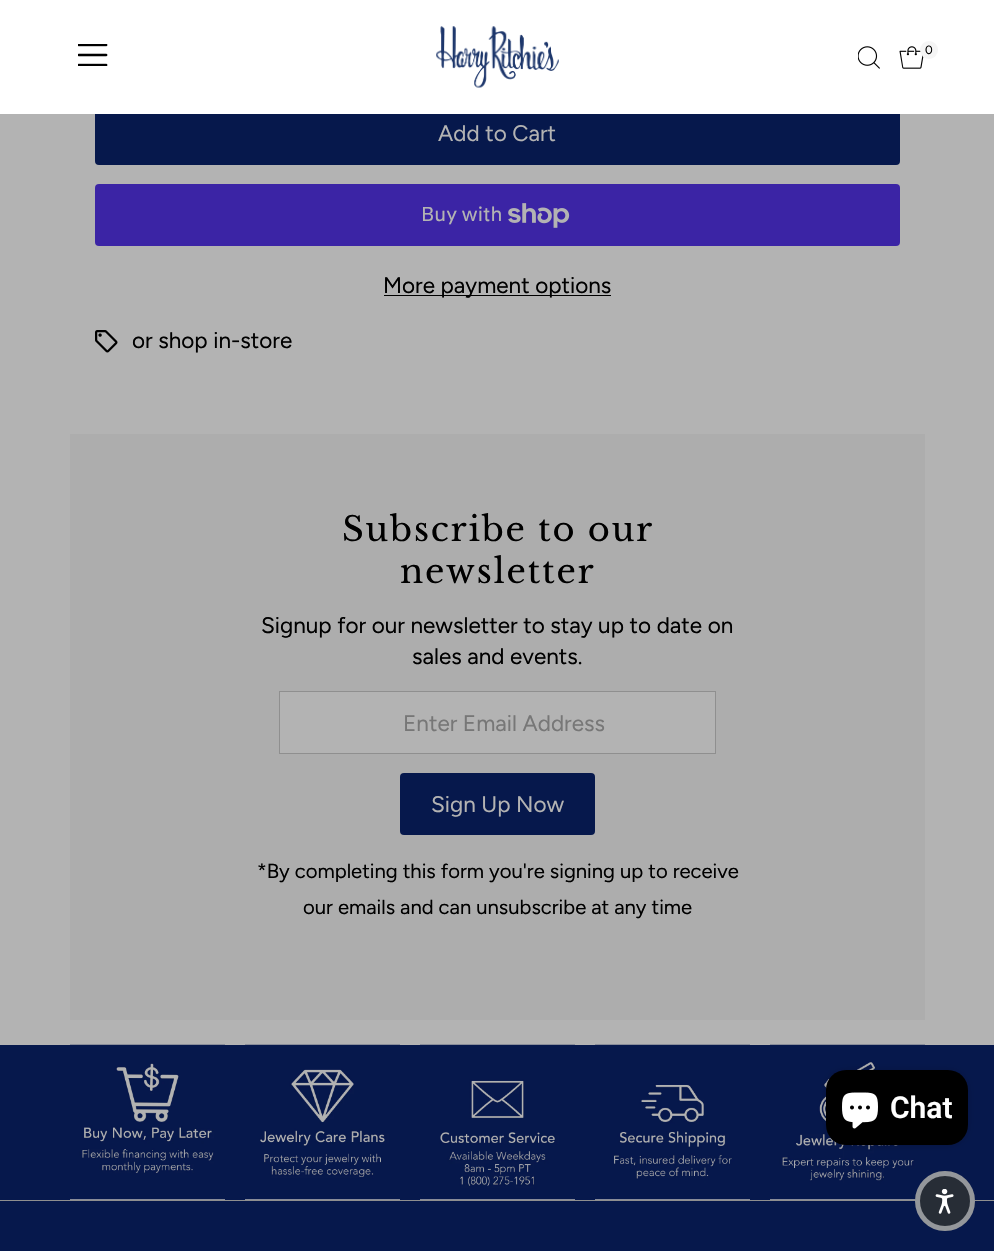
static SkFont makeFont(const char* family, int weight, float size, bool italic = false) {
  SkFontStyle style(weight, SkFontStyle::kNormal_Width,
    italic ? SkFontStyle::kItalic_Slant : SkFontStyle::kUpright_Slant);
  SkFont result(fontMgr->matchFamilyStyle(family, style), size);
  result.setSubpixel(true);
  return result;
}

static void text(SkCanvas* c, const char* s, float x, float y, const SkFont& font, SkColor color) {
  SkPaint ink(SkColor4f::FromColor(color));
  ink.setAntiAlias(true);
  c->drawString(s, x, y, font, ink);
}

static void spacedText(SkCanvas* c, const char* s, float x, float y, const SkFont& font, const SkPaint& ink, float letter, float word) {
  std::vector<SkGlyphID> glyphs(font.countText(s, strlen(s), SkTextEncoding::kUTF8));
  std::vector<float> xs(glyphs.size());
  font.textToGlyphs(s, strlen(s), SkTextEncoding::kUTF8, glyphs);
  font.getXPos(glyphs, xs, x);
  float extra = 0;
  for (size_t i = 0; i < glyphs.size(); i++) {
    xs[i] += extra;
    extra += letter + word * (glyphs[i] == font.unicharToGlyph(' '));
  }
  c->drawTextBlob(SkTextBlob::MakeFromPosHGlyphs(glyphs, xs, y, font), 0, 0, ink);
}

static void box(SkCanvas* c, float l, float t, float r, float b, SkColor color) {
  SkPaint ink(SkColor4f::FromColor(color));
  ink.setAntiAlias(true);
  c->drawRect(SkRect::MakeLTRB(l, t, r, b), ink);
}

static void roundBox(SkCanvas* c, float l, float t, float r, float b, float radius, SkColor color) {
  SkPaint ink(SkColor4f::FromColor(color));
  ink.setAntiAlias(true);
  c->drawRoundRect(SkRect::MakeLTRB(l, t, r, b), radius, radius, ink);
}

static void picture(SkCanvas* c, const char* path, float l, float t, float r, float b) {
  auto image = SkImages::DeferredFromEncodedData(SkData::MakeFromFileName(path));
  c->drawImageRect(image, SkRect::MakeLTRB(l, t, r, b), SkSamplingOptions());
}

void draw(SkCanvas* c) {
  SkPaint paint;
  paint.setAntiAlias(true);
  c->clear(0xffb3b3b3);
  roundBox(c, 95, 103, 900, 165, 4, 0xff06184c);
  box(c, 0, 0, 994, 114, 0xffffffff);
  picture(c, "img_01.png", 78, 44, 108, 66);
  picture(c, "img_02.png", 436, 26, 559, 88);
  picture(c, "img_03.png", 858, 46, 880, 69);
  picture(c, "img_04.png", 899, 46, 924, 69);
  paint.setColor(0xfff5f5f5);
  c->drawCircle(929, 50, 9, paint);
  SkFont face1 = makeFont("Figtree", 400, 12);
  text(c, "0", 925, 54, face1, 0xff000000);
  SkFont face2 = makeFont("Figtree", 400, 22.5f);
  text(c, "Add to Cart", 438, 141, face2, 0xffb3b3b3);
  roundBox(c, 95, 184, 900, 246, 4, 0xff3b24a5);
  SkFont face3 = makeFont("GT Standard", 400, 20);
  text(c, "Buy with", 421, 221, face3, 0xffb3b3b3);
  picture(c, "img_05.png", 508, 203, 570, 228);
  box(c, 384, 295, 611, 296, 0xff000000);
  text(c, "More payment options", 383, 293, face2, 0xff000000);
  picture(c, "img_06.png", 95, 330, 118, 353);
  text(c, "or shop in-store", 132, 348, face2, 0xff000000);
  box(c, 70, 434, 925, 1020, 0xffadadad);
  SkFont face4 = makeFont("Libre Baskerville", 400, 33.75f);
  paint.setColor(0xff000000);
  spacedText(c, "Subscribe to our", 342, 541, face4, paint, 1.75f, 0);
  spacedText(c, "newsletter", 400, 583, face4, paint, 1.75f, 0);
  text(c, "Signup for our newsletter to stay up to date on", 261, 633, face2, 0xff000000);
  text(c, "sales and events.", 412, 664, face2, 0xff000000);
  paint.setColor(0xffb3b3b3);
  c->drawRect(SkRect::MakeLTRB(279.5f, 691.5f, 715.5f, 753.5f), paint);
  paint.setStyle(SkPaint::kStroke_Style);
  paint.setStrokeWidth(1);
  paint.setColor(0xff8f8f8f);
  c->drawRect(SkRect::MakeLTRB(279.5f, 691.5f, 715.5f, 753.5f), paint);
  text(c, "Enter Email Address", 403, 731, face2, 0xff777777);
  roundBox(c, 400, 773, 595, 835, 4, 0xff06184c);
  text(c, "Sign Up Now", 431, 812, face2, 0xffb3b3b3);
  SkFont face5 = makeFont("Figtree", 400, 20.25f);
  text(c, "*By completing this form you're signing up to receive", 257, 878, face5, 0xff000000);
  text(c, "our emails and can unsubscribe at any time", 303, 914, face5, 0xff000000);
  box(c, 0, 1045, 994, 1200, 0xff06184c);
  box(c, 70, 1199, 225, 1200, 0xffb3b3b3);
  picture(c, "img_07.png", 70, 1044, 225, 1200);
  box(c, 245, 1199, 400, 1200, 0xffb3b3b3);
  picture(c, "img_08.png", 245, 1044, 400, 1200);
  box(c, 420, 1199, 575, 1200, 0xffb3b3b3);
  picture(c, "img_09.png", 420, 1044, 575, 1200);
  box(c, 595, 1199, 750, 1200, 0xffb3b3b3);
  picture(c, "img_10.png", 595, 1044, 750, 1200);
  box(c, 770, 1199, 916, 1200, 0xffb3b3b3);
  picture(c, "img_11.png", 770, 1044, 925, 1200);
  box(c, 0, 1201, 994, 1251, 0xff06184c);
  box(c, 0, 1200, 994, 1201, 0xff8f8f8f);
  paint.setStyle(SkPaint::kFill_Style);
  paint.setColor(0x26000000);
  paint.setMaskFilter(SkMaskFilter::MakeBlur(kNormal_SkBlurStyle, 3));
  c->drawRoundRect(SkRect::MakeLTRB(826, 1070, 968, 1145), 20, 20, paint);
  paint.setMaskFilter(nullptr);
  roundBox(c, 826, 1070, 968, 1145, 20, 0xff000000);
  picture(c, "img_12.png", 842, 1092, 878, 1129);
  SkFont face6 = makeFont("Roboto", 600, 30);
  text(c, "Chat", 890, 1118, face6, 0xffffffff);
  paint.setColor(0xff272d36);
  c->drawCircle(945, 1201, 30, paint);
  paint.setStyle(SkPaint::kStroke_Style);
  paint.setStrokeWidth(5);
  paint.setColor(0x80ffffff);
  c->drawCircle(945, 1201, 27.5f, paint);
  picture(c, "img_13.png", 935, 1189, 954, 1214);
}
